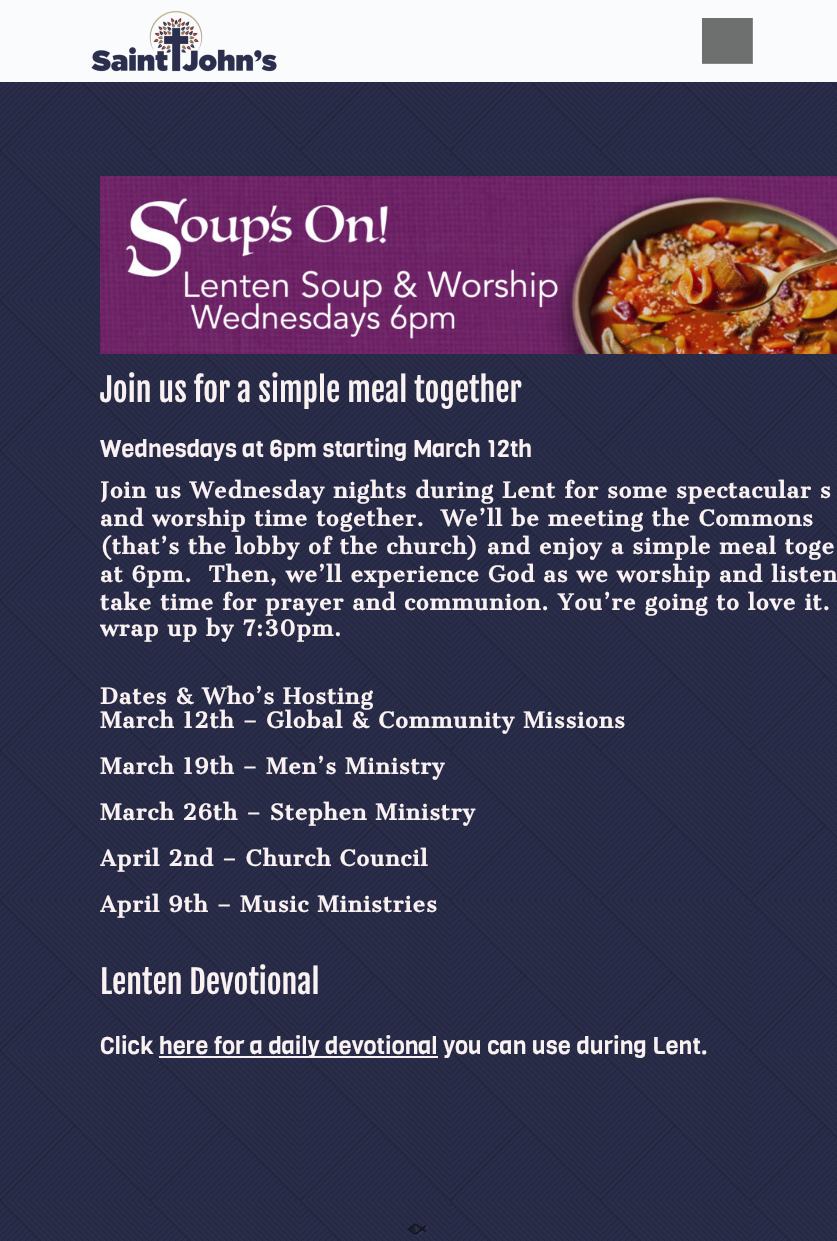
static SkFont makeFont(const char* family, int weight, float size, bool italic = false) {
  SkFontStyle style(weight, SkFontStyle::kNormal_Width,
    italic ? SkFontStyle::kItalic_Slant : SkFontStyle::kUpright_Slant);
  SkFont result(fontMgr->matchFamilyStyle(family, style), size);
  result.setSubpixel(true);
  return result;
}

static void text(SkCanvas* c, const char* s, float x, float y, const SkFont& font, SkColor color) {
  SkPaint ink(SkColor4f::FromColor(color));
  ink.setAntiAlias(true);
  c->drawString(s, x, y, font, ink);
}

static void spacedText(SkCanvas* c, const char* s, float x, float y, const SkFont& font, const SkPaint& ink, float letter, float word) {
  std::vector<SkGlyphID> glyphs(font.countText(s, strlen(s), SkTextEncoding::kUTF8));
  std::vector<float> xs(glyphs.size());
  font.textToGlyphs(s, strlen(s), SkTextEncoding::kUTF8, glyphs);
  font.getXPos(glyphs, xs, x);
  float extra = 0;
  for (size_t i = 0; i < glyphs.size(); i++) {
    xs[i] += extra;
    extra += letter + word * (glyphs[i] == font.unicharToGlyph(' '));
  }
  c->drawTextBlob(SkTextBlob::MakeFromPosHGlyphs(glyphs, xs, y, font), 0, 0, ink);
}

static void box(SkCanvas* c, float l, float t, float r, float b, SkColor color) {
  SkPaint ink(SkColor4f::FromColor(color));
  ink.setAntiAlias(true);
  c->drawRect(SkRect::MakeLTRB(l, t, r, b), ink);
}

static void picture(SkCanvas* c, const char* path, float l, float t, float r, float b) {
  auto image = SkImages::DeferredFromEncodedData(SkData::MakeFromFileName(path));
  c->drawImageRect(image, SkRect::MakeLTRB(l, t, r, b), SkSamplingOptions());
}

void draw(SkCanvas* c) {
  SkPaint paint;
  paint.setAntiAlias(true);
  c->clear(0xff2a2d4a);
  picture(c, "img_01.png", 0, 82, 837, 1241);
  box(c, 0, 0, 837, 82, 0xfff9fbfc);
  picture(c, "img_02.png", 91, 10, 277, 72);
  box(c, 702, 18, 752, 63, 0xff6e6f6f);
  box(c, 752, 18, 753, 64, 0xff868787);
  box(c, 702, 63, 753, 64, 0xff868787);
  picture(c, "img_03.png", 100, 176, 837, 354);
  SkFont face1 = makeFont("Fjalla One", 400, 32);
  text(c, "Join us for a simple meal together", 100, 402, face1, 0xfffaf2f2);
  SkFont face2 = makeFont("Viga", 400, 24);
  text(c, "Wednesdays at 6pm starting March 12th", 100, 457, face2, 0xfffaf2f2);
  SkFont face3 = makeFont("Cantata One", 700, 21.35f);
  paint.setColor(0xfffaf2f2);
  spacedText(c, "Join us Wednesday nights during Lent for some spectacular s", 100, 498, face3, paint, 1, 0);
  spacedText(c, "and worship time together.  We’ll be meeting the Commons", 100, 526, face3, paint, 1, 0);
  spacedText(c, "(that’s the lobby of the church) and enjoy a simple meal toge", 100, 554, face3, paint, 1, 0);
  spacedText(c, "at 6pm.  Then, we’ll experience God as we worship and listen", 100, 582, face3, paint, 1, 0);
  spacedText(c, "take time for prayer and communion. You’re going to love it.", 100, 610, face3, paint, 1, 0);
  spacedText(c, "wrap up by 7:30pm.", 100, 636, face3, paint, 1, 0);
  spacedText(c, "Dates & Who’s Hosting", 100, 704, face3, paint, 1, 0);
  spacedText(c, "March 12th – Global & Community Missions", 100, 728, face3, paint, 1, 0);
  spacedText(c, "March 19th – Men’s Ministry", 100, 774, face3, paint, 1, 0);
  spacedText(c, "March 26th – Stephen Ministry", 100, 820, face3, paint, 1, 0);
  spacedText(c, "April 2nd – Church Council", 100, 866, face3, paint, 1, 0);
  spacedText(c, "April 9th – Music Ministries", 100, 912, face3, paint, 1, 0);
  text(c, "Lenten Devotional", 100, 994, face1, 0xfffaf2f2);
  text(c, "Click", 100, 1054, face2, 0xfffaf2f2);
  box(c, 159, 1056, 438, 1058, 0xfffaf2f2);
  text(c, "here for a daily devotional you can use during Lent.", 159, 1054, face2, 0xfffaf2f2);
  picture(c, "img_04.png", 407, 1223, 428, 1236);
}
